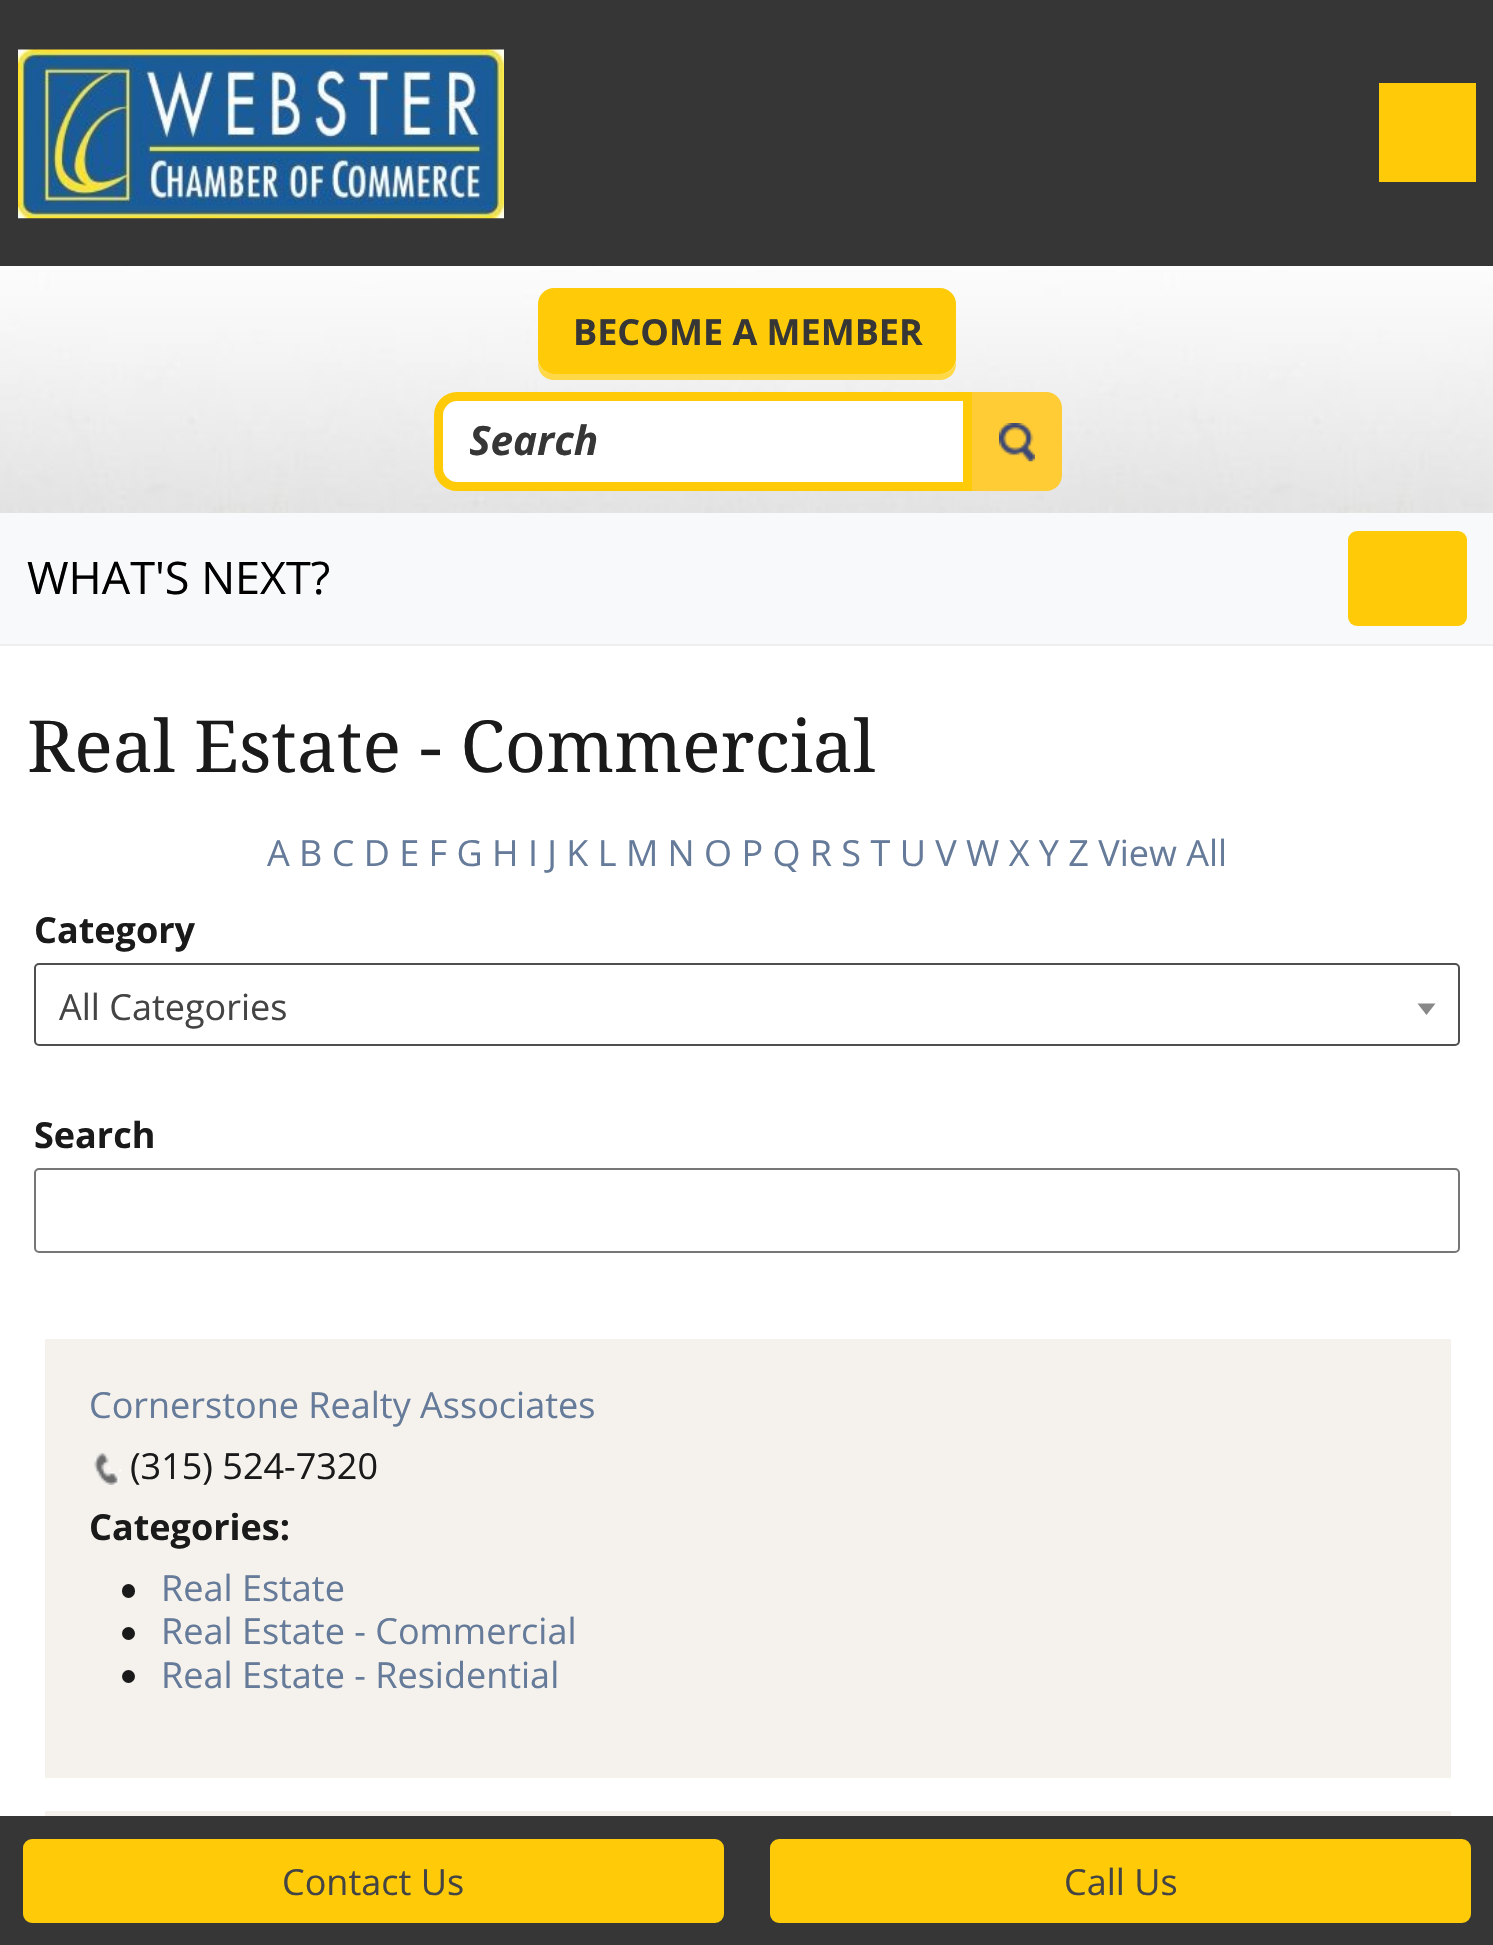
static SkFont makeFont(const char* family, int weight, float size, bool italic = false) {
  SkFontStyle style(weight, SkFontStyle::kNormal_Width,
    italic ? SkFontStyle::kItalic_Slant : SkFontStyle::kUpright_Slant);
  SkFont result(fontMgr->matchFamilyStyle(family, style), size);
  result.setSubpixel(true);
  return result;
}

static void text(SkCanvas* c, const char* s, float x, float y, const SkFont& font, SkColor color) {
  SkPaint ink(SkColor4f::FromColor(color));
  ink.setAntiAlias(true);
  c->drawString(s, x, y, font, ink);
}

static void box(SkCanvas* c, float l, float t, float r, float b, SkColor color) {
  SkPaint ink(SkColor4f::FromColor(color));
  ink.setAntiAlias(true);
  c->drawRect(SkRect::MakeLTRB(l, t, r, b), ink);
}

static void roundBox(SkCanvas* c, float l, float t, float r, float b, float radius, SkColor color) {
  SkPaint ink(SkColor4f::FromColor(color));
  ink.setAntiAlias(true);
  c->drawRoundRect(SkRect::MakeLTRB(l, t, r, b), radius, radius, ink);
}

static void picture(SkCanvas* c, const char* path, float l, float t, float r, float b) {
  auto image = SkImages::DeferredFromEncodedData(SkData::MakeFromFileName(path));
  c->drawImageRect(image, SkRect::MakeLTRB(l, t, r, b), SkSamplingOptions());
}

void draw(SkCanvas* c) {
  SkPaint paint;
  paint.setAntiAlias(true);
  c->clear(0xffffffff);
  picture(c, "img_01.png", 0, 270, 1493, 513);
  box(c, 0, 0, 1493, 266, 0xff363636);
  picture(c, "img_02.png", 18, 49, 504, 219);
  box(c, 1379, 83, 1476, 182, 0xffffcb08);
  paint.setColor(0xffffd848);
  c->drawPath(SkPathBuilder().moveTo(538, 361).lineTo(538, 364).cubicTo(538, 373, 545, 380, 554, 380).lineTo(940, 380).cubicTo(949, 380, 956, 373, 956, 364).lineTo(956, 361).cubicTo(955, 368, 948, 374, 940, 374).lineTo(554, 374).cubicTo(546, 374, 539, 368, 538, 361).close().detach(), paint);
  roundBox(c, 538, 288, 956, 374, 16, 0xffffcb08);
  SkFont face1 = makeFont("Open Sans", 700, 36);
  text(c, "BECOME A MEMBER", 573, 345, face1, 0xff363636);
  paint.setColor(0xffffffff);
  c->drawPath(SkPathBuilder().moveTo(457, 396.5f).lineTo(967.5f, 396.5f).lineTo(967.5f, 486.5f).lineTo(457, 486.5f).cubicTo(447, 486.5f, 438.5f, 478, 438.5f, 468).lineTo(438.5f, 415).cubicTo(438.5f, 405, 447, 396.5f, 457, 396.5f).close().detach(), paint);
  paint.setStyle(SkPaint::kStroke_Style);
  paint.setStrokeWidth(9);
  paint.setColor(0xffffcb08);
  c->drawPath(SkPathBuilder().moveTo(457, 396.5f).lineTo(967.5f, 396.5f).lineTo(967.5f, 486.5f).lineTo(457, 486.5f).cubicTo(447, 486.5f, 438.5f, 478, 438.5f, 468).lineTo(438.5f, 415).cubicTo(438.5f, 405, 447, 396.5f, 457, 396.5f).close().detach(), paint);
  c->save();
  c->clipRect(SkRect::MakeLTRB(470, 412, 839, 466));
  SkFont face2 = makeFont("Open Sans", 700, 40.5f, true);
  text(c, "Search", 469, 455, face2, 0xff363636);
  c->restore();
  paint.setStyle(SkPaint::kFill_Style);
  paint.setColor(0xffffcc36);
  c->drawPath(SkPathBuilder().moveTo(972, 392).lineTo(1046, 392).cubicTo(1055, 392, 1062, 399, 1062, 408).lineTo(1062, 475).cubicTo(1062, 484, 1055, 491, 1046, 491).lineTo(972, 491).close().detach(), paint);
  picture(c, "img_03.png", 999, 423, 1035, 462);
  box(c, 0, 513, 1493, 644, 0xfff8f9fa);
  box(c, 0, 644, 1493, 646, 0xffeeeeee);
  SkFont face3 = makeFont("Open Sans", 400, 45);
  text(c, "WHAT'S NEXT?", 27, 594, face3, 0xff000000);
  roundBox(c, 1348, 531, 1467, 626, 9, 0xffffcb08);
  SkFont face4 = makeFont("Noto Serif", 400, 71.9f);
  text(c, "Real Estate - Commercial", 27, 772, face4, 0xff1a1a1a);
  SkFont face5 = makeFont("Open Sans", 400, 36);
  text(c, "A B C D E F G H I J K L M N O P Q R S T U V W X Y Z View All", 267, 866, face5, 0xff657b99);
  text(c, "Category", 34, 943, face1, 0xff1a1a1a);
  paint.setStyle(SkPaint::kStroke_Style);
  paint.setStrokeWidth(2);
  paint.setColor(0xff4f4f4f);
  c->drawRoundRect(SkRect::MakeLTRB(35, 964, 1459, 1045), 4, 4, paint);
  text(c, "All Categories", 59, 1020, face5, 0xff444444);
  paint.setStyle(SkPaint::kFill_Style);
  paint.setColor(0xff888888);
  c->drawPath(SkPathBuilder().moveTo(1417.5f, 1003.5f).lineTo(1435.5f, 1003.5f).lineTo(1426.5f, 1015).close().detach(), paint);
  text(c, "Search", 34, 1148, face1, 0xff1a1a1a);
  paint.setStyle(SkPaint::kStroke_Style);
  paint.setColor(0xff767676);
  c->drawRoundRect(SkRect::MakeLTRB(35, 1169, 1459, 1252), 4, 4, paint);
  box(c, 45, 1339, 1451, 1778, 0xfff5f2ed);
  text(c, "Cornerstone Realty Associates", 89, 1418, face5, 0xff657b99);
  picture(c, "img_04.png", 94, 1453, 122, 1485);
  text(c, "(315) 524-7320", 130, 1479, face5, 0xff1a1a1a);
  text(c, "Categories:", 89, 1540, face1, 0xff1a1a1a);
  roundBox(c, 122, 1584, 135, 1598, 6.5f, 0xff1a1a1a);
  text(c, "Real Estate", 161, 1601, face5, 0xff657b99);
  paint.setStyle(SkPaint::kFill_Style);
  paint.setColor(0xff1a1a1a);
  c->drawCircle(128.5f, 1633.5f, 6.5f, paint);
  text(c, "Real Estate - Commercial", 161, 1644, face5, 0xff657b99);
  c->drawCircle(128.5f, 1676.5f, 6.5f, paint);
  text(c, "Real Estate - Residential", 161, 1688, face5, 0xff657b99);
  box(c, 45, 1811, 1451, 1816, 0xfff5f2ed);
  box(c, 0, 1816, 1493, 1945, 0xff363636);
  paint.setColor(0xffffcb08);
  c->drawRoundRect(SkRect::MakeLTRB(20.5f, 1836.5f, 726.5f, 1925.5f), 11.5f, 11.5f, paint);
  paint.setStyle(SkPaint::kStroke_Style);
  paint.setStrokeWidth(5);
  paint.setColor(0xff363636);
  c->drawRoundRect(SkRect::MakeLTRB(20.5f, 1836.5f, 726.5f, 1925.5f), 11.5f, 11.5f, paint);
  text(c, "Contact Us", 282, 1895, face5, 0xff444444);
  paint.setStyle(SkPaint::kFill_Style);
  paint.setColor(0xffffcb08);
  c->drawRoundRect(SkRect::MakeLTRB(767.5f, 1836.5f, 1473.5f, 1925.5f), 11.5f, 11.5f, paint);
  paint.setStyle(SkPaint::kStroke_Style);
  paint.setColor(0xff363636);
  c->drawRoundRect(SkRect::MakeLTRB(767.5f, 1836.5f, 1473.5f, 1925.5f), 11.5f, 11.5f, paint);
  text(c, "Call Us", 1064, 1895, face5, 0xff444444);
}
